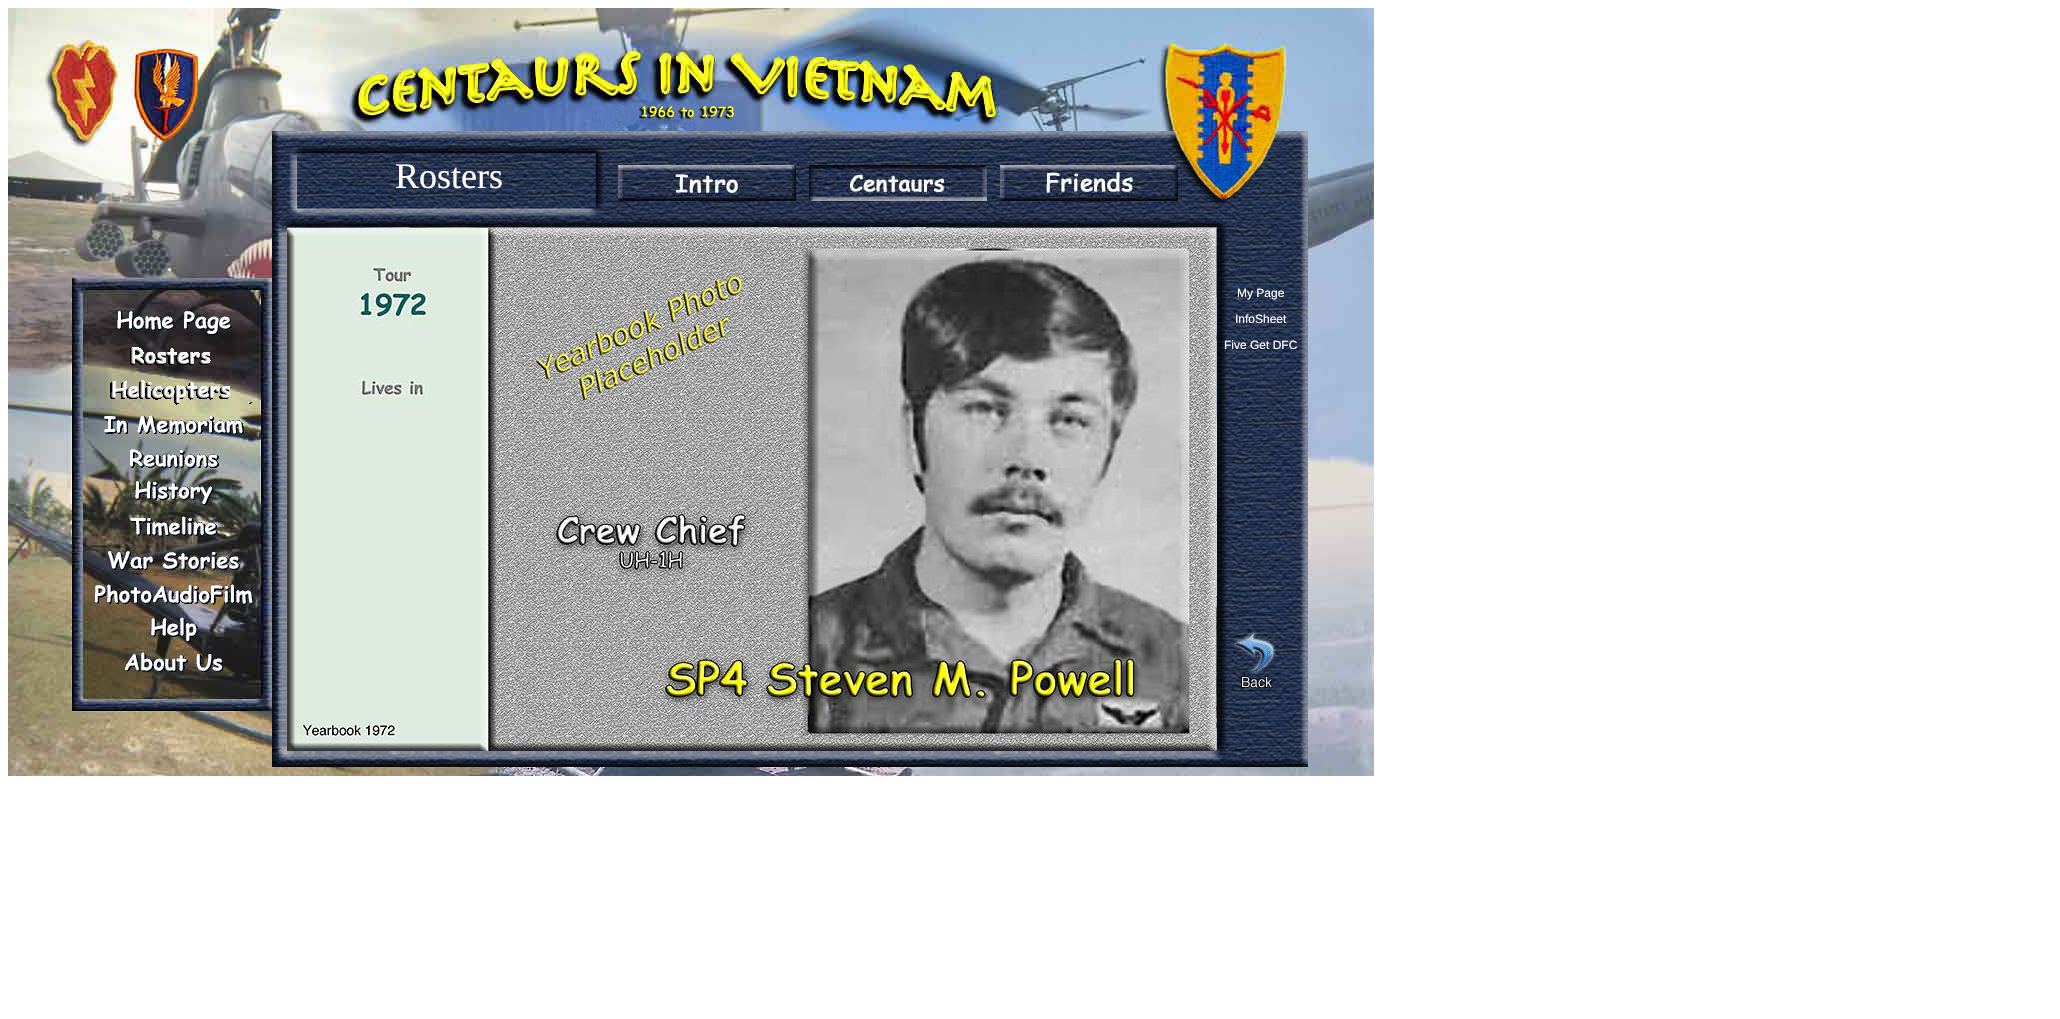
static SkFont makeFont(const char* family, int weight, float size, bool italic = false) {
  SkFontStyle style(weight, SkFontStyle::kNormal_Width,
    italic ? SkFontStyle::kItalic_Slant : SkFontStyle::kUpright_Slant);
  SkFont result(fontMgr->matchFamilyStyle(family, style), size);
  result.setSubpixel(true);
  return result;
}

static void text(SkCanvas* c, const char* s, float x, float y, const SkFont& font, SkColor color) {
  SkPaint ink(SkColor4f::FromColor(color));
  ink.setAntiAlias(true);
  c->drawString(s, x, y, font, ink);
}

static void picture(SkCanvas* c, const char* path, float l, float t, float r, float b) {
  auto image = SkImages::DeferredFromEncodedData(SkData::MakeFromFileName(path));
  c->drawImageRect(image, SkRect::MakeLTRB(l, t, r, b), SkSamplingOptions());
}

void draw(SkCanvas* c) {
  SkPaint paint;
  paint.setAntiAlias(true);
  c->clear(0xffffffff);
  picture(c, "img_01.png", 8, 8, 1374, 776);
  picture(c, "img_02.png", 272, 131, 1308, 767);
  SkFont face1 = makeFont("Liberation Serif", 400, 36);
  text(c, "Rosters", 395, 188, face1, 0xffffffff);
  picture(c, "img_03.png", 618, 165, 796, 201);
  picture(c, "img_04.png", 809, 165, 987, 201);
  picture(c, "img_05.png", 1000, 165, 1178, 201);
  picture(c, "img_06.png", 287, 228, 1216, 751);
  SkFont face2 = makeFont("Liberation Sans", 400, 12);
  text(c, "My Page", 1237, 297, face2, 0xffffffff);
  text(c, "InfoSheet", 1235, 323, face2, 0xffffffff);
  text(c, "Five Get DFC", 1224, 349, face2, 0xffffffff);
  picture(c, "img_07.png", 117, 311, 232, 335);
  picture(c, "img_08.png", 130, 347, 211, 366);
  picture(c, "img_09.png", 110, 380, 252, 405);
  picture(c, "img_10.png", 104, 415, 244, 435);
  picture(c, "img_11.png", 130, 449, 219, 468);
  picture(c, "img_12.png", 135, 481, 214, 505);
  picture(c, "img_13.png", 130, 516, 218, 537);
  picture(c, "img_14.png", 108, 551, 240, 570);
  picture(c, "img_15.png", 95, 584, 253, 605);
  picture(c, "img_16.png", 151, 617, 198, 642);
  picture(c, "img_17.png", 125, 652, 224, 672);
}
